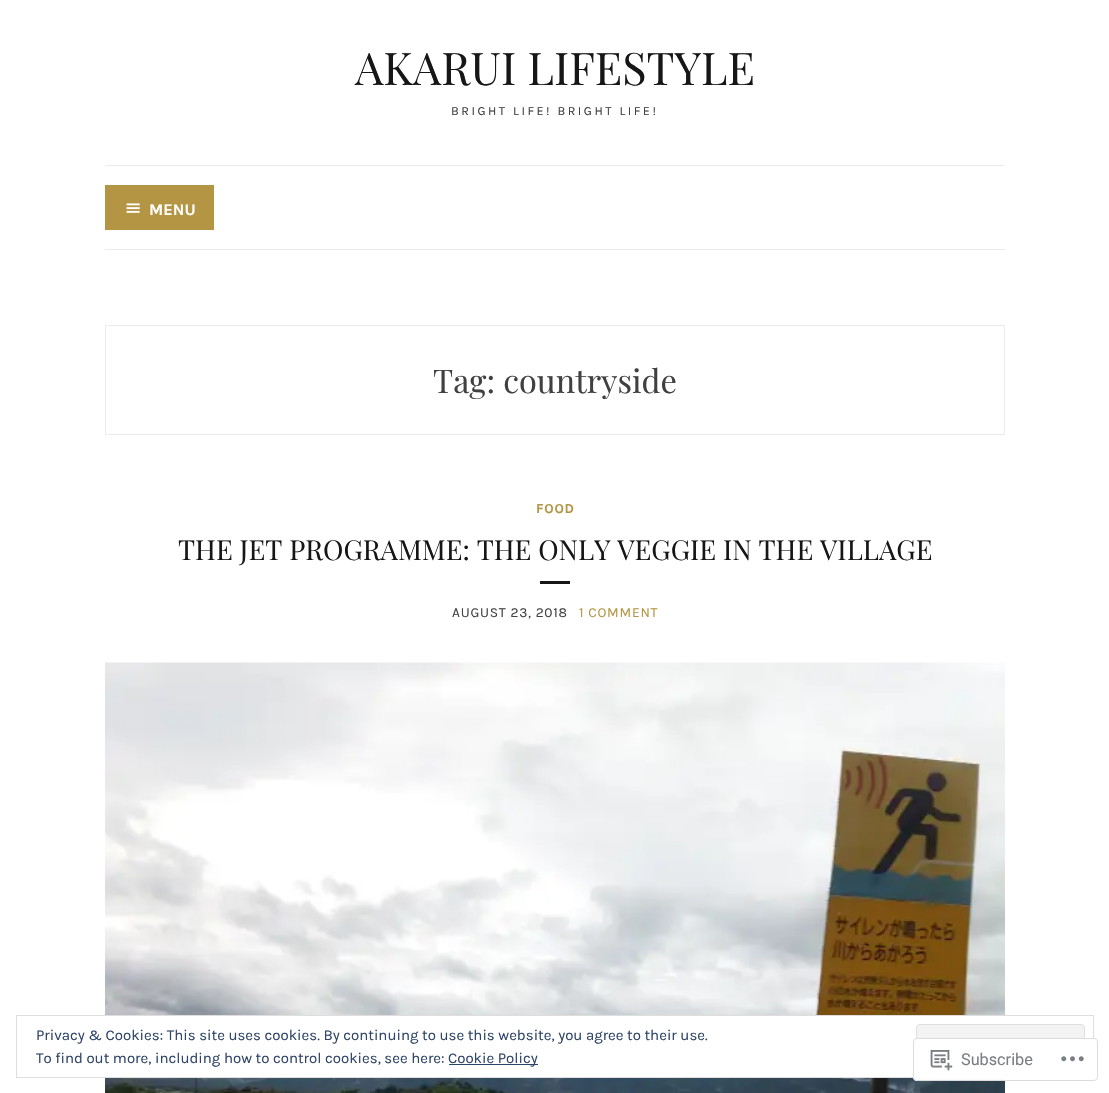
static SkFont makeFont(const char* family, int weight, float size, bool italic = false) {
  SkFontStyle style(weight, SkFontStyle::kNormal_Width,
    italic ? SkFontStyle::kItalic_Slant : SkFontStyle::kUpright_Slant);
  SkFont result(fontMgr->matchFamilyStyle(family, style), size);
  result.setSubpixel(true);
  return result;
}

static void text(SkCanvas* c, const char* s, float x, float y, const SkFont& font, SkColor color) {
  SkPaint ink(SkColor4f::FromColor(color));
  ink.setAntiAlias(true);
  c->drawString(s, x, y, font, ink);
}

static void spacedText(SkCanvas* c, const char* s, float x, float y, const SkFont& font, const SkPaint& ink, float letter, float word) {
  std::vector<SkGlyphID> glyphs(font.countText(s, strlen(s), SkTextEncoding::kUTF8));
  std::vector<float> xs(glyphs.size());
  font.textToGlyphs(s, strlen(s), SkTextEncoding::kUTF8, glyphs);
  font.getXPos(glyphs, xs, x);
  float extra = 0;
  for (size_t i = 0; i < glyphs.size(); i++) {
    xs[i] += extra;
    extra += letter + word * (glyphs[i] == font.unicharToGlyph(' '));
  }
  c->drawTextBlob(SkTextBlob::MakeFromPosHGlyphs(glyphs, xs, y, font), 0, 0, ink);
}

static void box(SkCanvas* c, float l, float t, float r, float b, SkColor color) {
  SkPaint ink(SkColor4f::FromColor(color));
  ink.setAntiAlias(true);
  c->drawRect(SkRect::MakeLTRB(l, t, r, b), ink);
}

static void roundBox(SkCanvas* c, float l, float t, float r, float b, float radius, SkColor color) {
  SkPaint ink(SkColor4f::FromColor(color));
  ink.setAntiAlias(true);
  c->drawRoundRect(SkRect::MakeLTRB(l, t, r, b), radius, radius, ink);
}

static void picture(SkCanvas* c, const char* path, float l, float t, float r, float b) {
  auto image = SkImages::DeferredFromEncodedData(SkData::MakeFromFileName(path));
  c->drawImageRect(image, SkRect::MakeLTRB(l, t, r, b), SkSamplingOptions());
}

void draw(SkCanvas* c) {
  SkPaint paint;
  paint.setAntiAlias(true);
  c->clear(0xffffffff);
  SkFont face1 = makeFont("Playfair Display", 400, 45);
  text(c, "AKARUI LIFESTYLE", 355, 85, face1, 0xff161616);
  SkFont face2 = makeFont("Karla", 400, 12.5f);
  paint.setColor(0xff404040);
  spacedText(c, "BRIGHT LIFE! BRIGHT LIFE!", 451, 115, face2, paint, 2.5f, 0);
  box(c, 105, 165, 1005, 166, 0xffebebeb);
  box(c, 105, 249, 1005, 250, 0xffebebeb);
  box(c, 105, 185, 214, 230, 0xffb49543);
  picture(c, "img_01.png", 126, 203, 140, 213);
  SkFont face3 = makeFont("Karla", 700, 16.25f);
  text(c, "MENU", 149, 215, face3, 0xffffffff);
  paint.setStyle(SkPaint::kStroke_Style);
  paint.setStrokeWidth(1);
  paint.setColor(0xffebebeb);
  c->drawRect(SkRect::MakeLTRB(105.5f, 325.5f, 1004.5f, 434.5f), paint);
  SkFont face4 = makeFont("Playfair Display", 400, 32.5f);
  text(c, "Tag: countryside", 433, 393, face4, 0xff404040);
  SkFont face5 = makeFont("Karla", 700, 13.75f);
  paint.setStyle(SkPaint::kFill_Style);
  paint.setColor(0xffb49543);
  spacedText(c, "FOOD", 536, 513, face5, paint, 0.75f, 0);
  SkFont face6 = makeFont("Playfair Display", 400, 27.5f);
  text(c, "THE JET PROGRAMME: THE ONLY VEGGIE IN THE VILLAGE", 178, 560, face6, 0xff161616);
  box(c, 540, 581, 570, 584, 0xff161616);
  SkFont face7 = makeFont("Karla", 400, 13.75f);
  paint.setColor(0xff404040);
  spacedText(c, "AUGUST 23, 2018", 452, 617, face7, paint, 0.75f, 0);
  paint.setColor(0xffb49543);
  spacedText(c, "1 COMMENT", 579, 617, face7, paint, 0.75f, 0);
  picture(c, "img_02.png", 105, 662, 1005, 1093);
  box(c, 105, 1016, 1005, 1077, 0xffffffff);
  paint.setStyle(SkPaint::kStroke_Style);
  paint.setColor(0xffdedede);
  c->drawRect(SkRect::MakeLTRB(16.5f, 1015.5f, 1093.5f, 1077.5f), paint);
  SkFont face8 = makeFont("Karla", 400, 15);
  text(c, "Privacy & Cookies: This site uses cookies. By continuing to use this website, you agree to their use.", 36, 1040, face8, 0xff2e4467);
  paint.setStyle(SkPaint::kFill_Style);
  paint.setColor(0xfff3f3f3);
  c->drawRoundRect(SkRect::MakeLTRB(916.5f, 1024.5f, 1084.5f, 1068.5f), 3.5f, 3.5f, paint);
  paint.setStyle(SkPaint::kStroke_Style);
  paint.setColor(0xffdedede);
  c->drawRoundRect(SkRect::MakeLTRB(916.5f, 1024.5f, 1084.5f, 1068.5f), 3.5f, 3.5f, paint);
  text(c, "To find out more, including how to control cookies, see here:", 36, 1063, face8, 0xff2e4467);
  box(c, 449, 1064, 538, 1065, 0xff2e4467);
  text(c, "Cookie Policy", 448, 1063, face8, 0xff2e4467);
  roundBox(c, 913, 1038, 1098, 1081, 4, 0xfaffffff);
  paint.setColor(0xfadcdcde);
  c->drawRoundRect(SkRect::MakeLTRB(913.5f, 1038.5f, 1097.5f, 1080.5f), 3.5f, 3.5f, paint);
  picture(c, "img_03.png", 930, 1050, 953, 1071);
  SkFont face9 = makeFont("Roboto", 400, 16.25f);
  text(c, "Subscribe", 961, 1065, face9, 0xff7b7f84);
  picture(c, "img_04.png", 1061, 1056, 1084, 1062);
}
